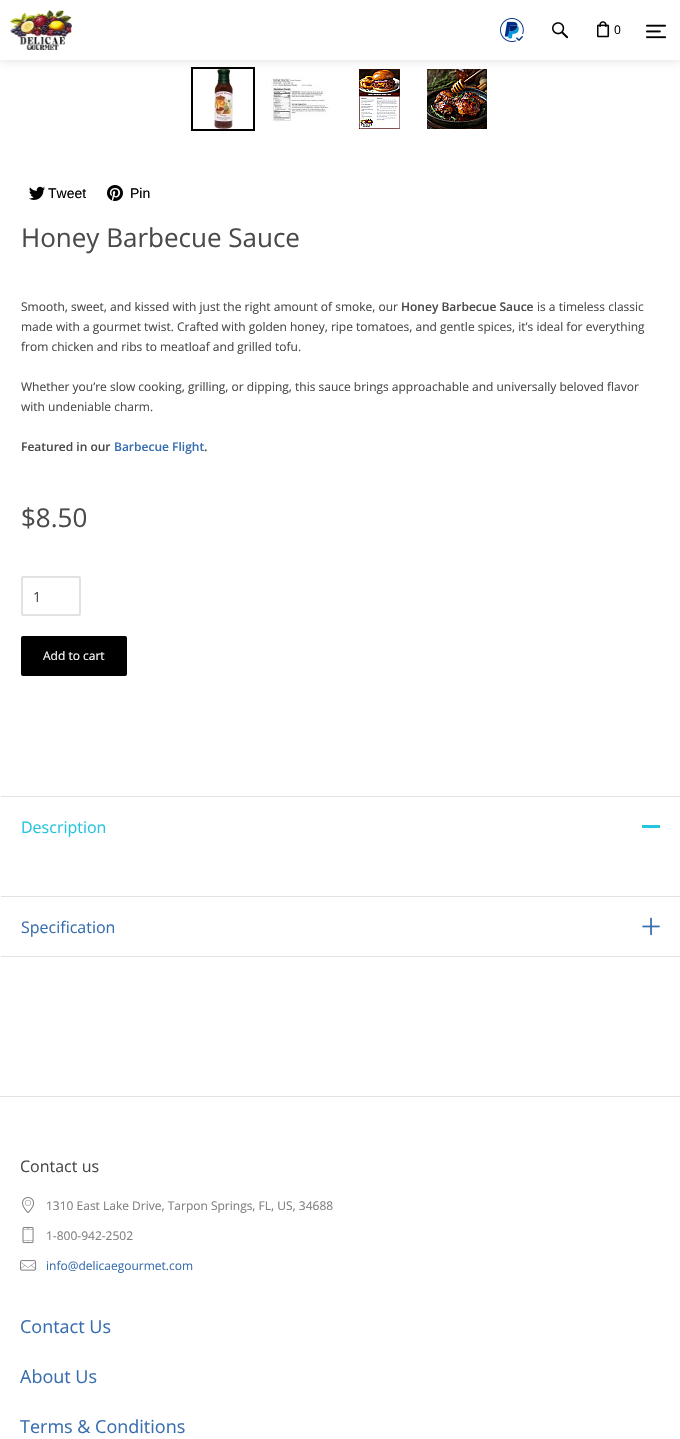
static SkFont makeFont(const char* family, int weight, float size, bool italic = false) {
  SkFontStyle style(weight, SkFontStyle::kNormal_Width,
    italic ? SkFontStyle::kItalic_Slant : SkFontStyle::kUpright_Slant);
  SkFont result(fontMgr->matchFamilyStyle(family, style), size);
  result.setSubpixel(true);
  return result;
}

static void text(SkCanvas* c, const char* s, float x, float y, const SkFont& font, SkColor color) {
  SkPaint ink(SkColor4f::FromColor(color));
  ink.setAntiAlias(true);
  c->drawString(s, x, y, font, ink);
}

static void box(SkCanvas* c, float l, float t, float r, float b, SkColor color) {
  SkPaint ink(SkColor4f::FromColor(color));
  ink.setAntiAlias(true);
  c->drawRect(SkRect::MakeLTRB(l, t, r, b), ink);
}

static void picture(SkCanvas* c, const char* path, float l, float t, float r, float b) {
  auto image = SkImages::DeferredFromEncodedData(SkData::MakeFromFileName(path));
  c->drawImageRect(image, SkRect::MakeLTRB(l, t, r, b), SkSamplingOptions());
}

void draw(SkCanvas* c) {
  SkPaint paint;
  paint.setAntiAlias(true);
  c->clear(0xffffffff);
  paint.setStyle(SkPaint::kStroke_Style);
  paint.setStrokeWidth(2);
  paint.setColor(0xff000000);
  c->drawRect(SkRect::MakeLTRB(192, 68, 254, 130), paint);
  picture(c, "img_06.png", 214, 69, 233, 129);
  picture(c, "img_08.png", 359, 69, 400, 129);
  picture(c, "img_09.png", 427, 69, 487, 129);
  paint.setStyle(SkPaint::kFill_Style);
  paint.setColor(0x334a494a);
  paint.setMaskFilter(SkMaskFilter::MakeBlur(kNormal_SkBlurStyle, 5));
  c->drawRect(SkRect::MakeLTRB(0, 0, 680, 60), paint);
  paint.setMaskFilter(nullptr);
  box(c, 0, 0, 680, 60, 0xffffffff);
  picture(c, "img_01.png", 9, 10, 72, 50);
  picture(c, "img_02.png", 500, 18, 524, 42);
  picture(c, "img_03.png", 552, 22, 568, 39);
  picture(c, "img_04.png", 597, 21, 610, 38);
  SkFont face1 = makeFont("Open Sans", 400, 12);
  text(c, "0", 614, 34, face1, 0xff000000);
  picture(c, "img_05.png", 646, 24, 667, 39);
  picture(c, "img_07.png", 271, 77, 331, 122);
  picture(c, "img_10.png", 29, 186, 45, 200);
  SkFont face2 = makeFont("Liberation Sans", 400, 14);
  text(c, "Tweet", 48, 198, face2, 0xff000000);
  picture(c, "img_11.png", 107, 185, 123, 201);
  text(c, "Pin", 130, 198, face2, 0xff000000);
  SkFont face3 = makeFont("Open Sans", 400, 26);
  text(c, "Honey Barbecue Sauce", 21, 247, face3, 0xff4a4a4a);
  text(c, "Smooth, sweet, and kissed with just the right amount of smoke, our", 21, 311, face1, 0xff4a4a4a);
  SkFont face4 = makeFont("Open Sans", 600, 12);
  text(c, "Honey Barbecue Sauce", 401, 311, face4, 0xff4a4a4a);
  text(c, "is a timeless classic", 537, 311, face1, 0xff4a4a4a);
  text(c, "made with a gourmet twist. Crafted with golden honey, ripe tomatoes, and gentle spices, it’s ideal for everything", 21, 331, face1, 0xff4a4a4a);
  text(c, "from chicken and ribs to meatloaf and grilled tofu.", 21, 351, face1, 0xff4a4a4a);
  text(c, "Whether you’re slow cooking, grilling, or dipping, this sauce brings approachable and universally beloved flavor", 21, 391, face1, 0xff4a4a4a);
  text(c, "with undeniable charm.", 21, 411, face1, 0xff4a4a4a);
  text(c, "Featured in our", 21, 451, face4, 0xff4a4a4a);
  text(c, "Barbecue Flight", 114, 451, face4, 0xff386eaf);
  text(c, ".", 204, 451, face4, 0xff4a4a4a);
  text(c, "$8.50", 21, 527, face3, 0xff4a4a4a);
  paint.setStyle(SkPaint::kStroke_Style);
  paint.setColor(0xffe2e2e2);
  c->drawRoundRect(SkRect::MakeLTRB(22, 577, 80, 615), 1, 1, paint);
  SkFont face5 = makeFont("Open Sans", 400, 14);
  text(c, "1", 33, 602, face5, 0xff4a4a4a);
  paint.setStyle(SkPaint::kFill_Style);
  paint.setColor(0xff000000);
  c->drawRoundRect(SkRect::MakeLTRB(22, 637, 126, 675), 1, 1, paint);
  paint.setStyle(SkPaint::kStroke_Style);
  c->drawRoundRect(SkRect::MakeLTRB(22, 637, 126, 675), 1, 1, paint);
  text(c, "Add to cart", 43, 660, face1, 0xffffffff);
  box(c, 1, 956, 680, 957, 0xffe2e2e2);
  box(c, 1, 796, 680, 797, 0xffe2e2e2);
  SkFont face6 = makeFont("Open Sans", 400, 16);
  text(c, "Description", 21, 833, face6, 0xff25c5df);
  box(c, 642, 825, 660, 828, 0xff25c5df);
  box(c, 1, 896, 680, 897, 0xffe2e2e2);
  text(c, "Specification", 21, 933, face6, 0xff386eaf);
  picture(c, "img_12.png", 642, 917, 660, 936);
  box(c, 0, 1096, 680, 1097, 0xffe2e2e2);
  text(c, "Contact us", 20, 1172, face6, 0xff4a4a4a);
  picture(c, "img_13.png", 22, 1197, 34, 1213);
  text(c, "1310 East Lake Drive, Tarpon Springs, FL, US, 34688", 46, 1210, face1, 0xff808080);
  picture(c, "img_14.png", 22, 1227, 34, 1244);
  text(c, "1-800-942-2502", 46, 1240, face1, 0xff808080);
  picture(c, "img_15.png", 20, 1260, 37, 1271);
  text(c, "info@delicaegourmet.com", 46, 1270, face1, 0xff386eaf);
  SkFont face7 = makeFont("Open Sans", 400, 18);
  text(c, "Contact Us", 20, 1333, face7, 0xff386eaf);
  text(c, "About Us", 20, 1383, face7, 0xff386eaf);
  text(c, "Terms & Conditions", 20, 1433, face7, 0xff386eaf);
}
